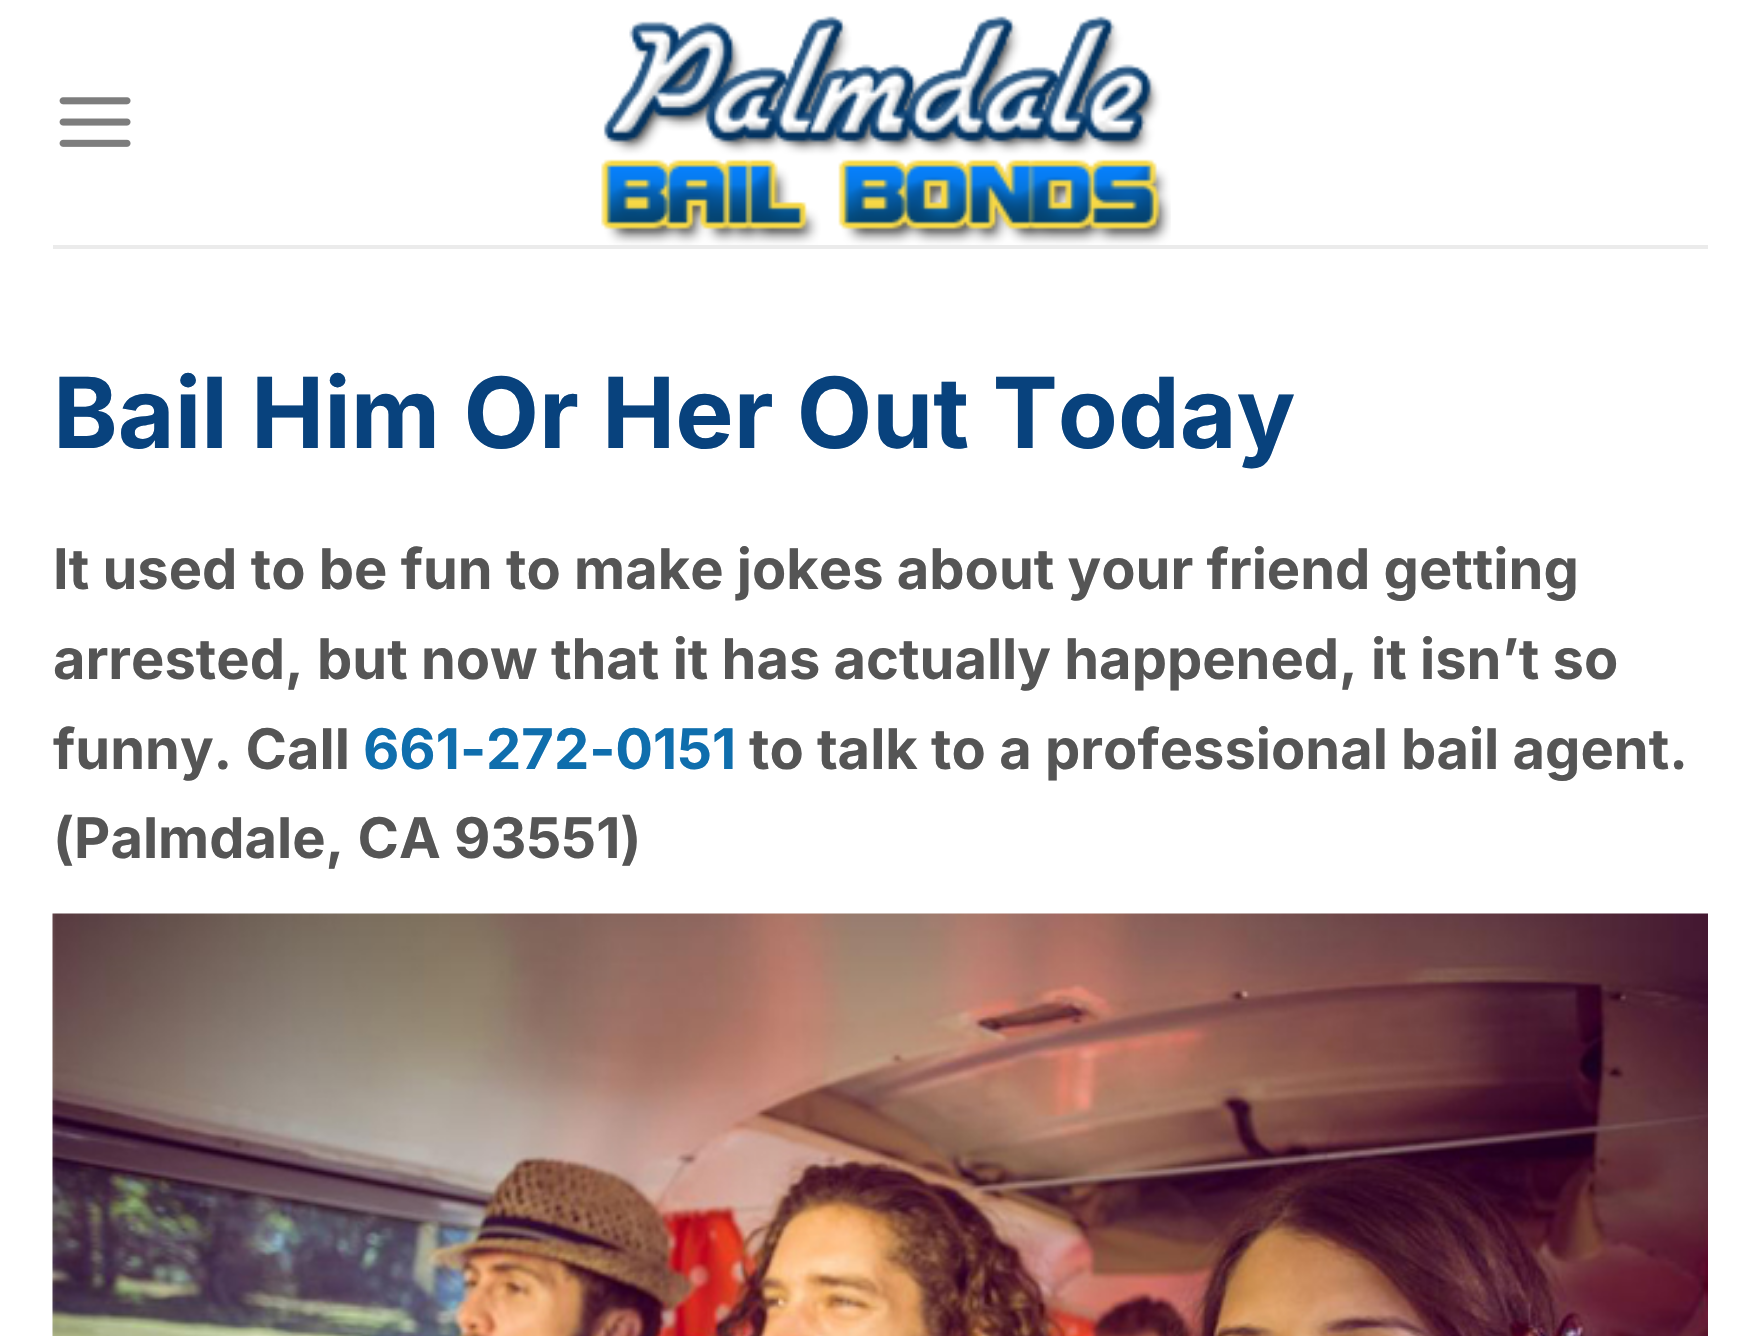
static SkFont makeFont(const char* family, int weight, float size, bool italic = false) {
  SkFontStyle style(weight, SkFontStyle::kNormal_Width,
    italic ? SkFontStyle::kItalic_Slant : SkFontStyle::kUpright_Slant);
  SkFont result(fontMgr->matchFamilyStyle(family, style), size);
  result.setSubpixel(true);
  return result;
}

static void text(SkCanvas* c, const char* s, float x, float y, const SkFont& font, SkColor color) {
  SkPaint ink(SkColor4f::FromColor(color));
  ink.setAntiAlias(true);
  c->drawString(s, x, y, font, ink);
}

static void box(SkCanvas* c, float l, float t, float r, float b, SkColor color) {
  SkPaint ink(SkColor4f::FromColor(color));
  ink.setAntiAlias(true);
  c->drawRect(SkRect::MakeLTRB(l, t, r, b), ink);
}

static void picture(SkCanvas* c, const char* path, float l, float t, float r, float b) {
  auto image = SkImages::DeferredFromEncodedData(SkData::MakeFromFileName(path));
  c->drawImageRect(image, SkRect::MakeLTRB(l, t, r, b), SkSamplingOptions());
}

void draw(SkCanvas* c) {
  SkPaint paint;
  paint.setAntiAlias(true);
  c->clear(0xffffffff);
  picture(c, "img_01.png", 59, 97, 131, 147);
  picture(c, "img_02.png", 601, 16, 1171, 245);
  box(c, 53, 245, 1708, 249, 0xffebebeb);
  SkFont face1 = makeFont("Inter", 700, 98);
  text(c, "Bail Him Or Her Out Today", 53, 448, face1, 0xff08427d);
  SkFont face2 = makeFont("Inter", 700, 56);
  text(c, "It used to be fun to make jokes about your friend getting", 53, 589, face2, 0xff555555);
  text(c, "arrested, but now that it has actually happened, it isn’t so", 53, 679, face2, 0xff555555);
  text(c, "funny. Call", 53, 769, face2, 0xff555555);
  text(c, "661-272-0151", 363, 769, face2, 0xff0f6ead);
  text(c, "to talk to a professional bail agent.", 749, 769, face2, 0xff555555);
  text(c, "(Palmdale, CA 93551)", 53, 858, face2, 0xff555555);
  picture(c, "img_03.png", 52, 913, 1708, 1336);
}
